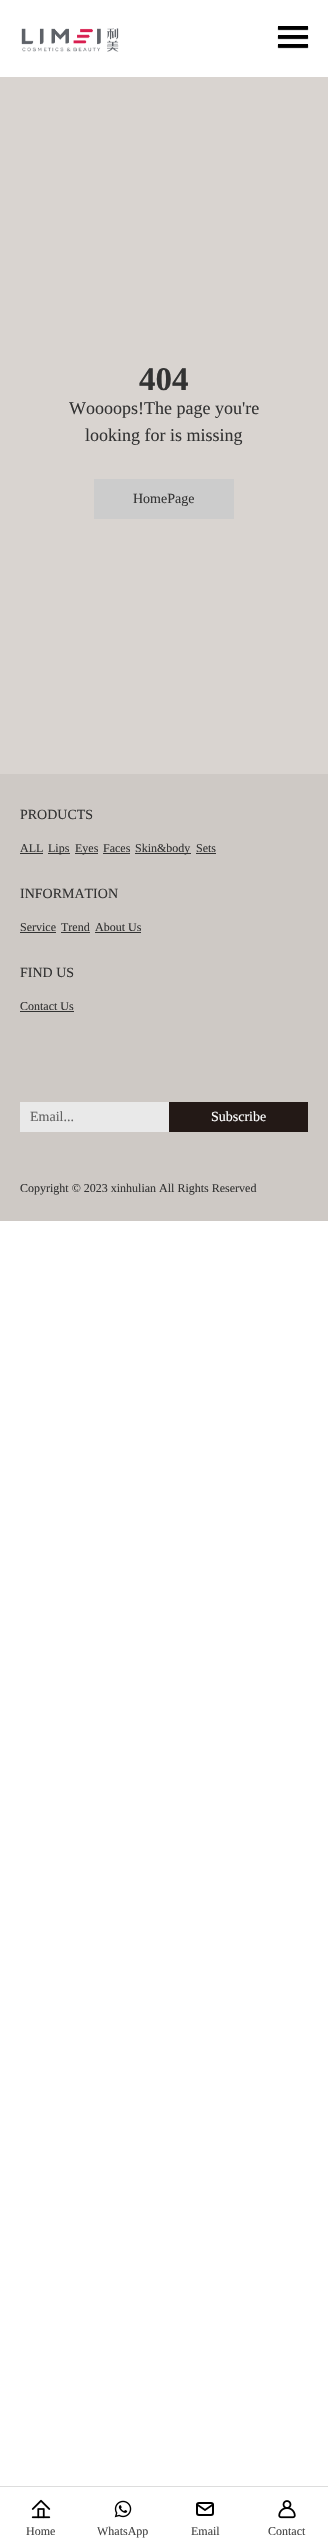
static SkFont makeFont(const char* family, int weight, float size, bool italic = false) {
  SkFontStyle style(weight, SkFontStyle::kNormal_Width,
    italic ? SkFontStyle::kItalic_Slant : SkFontStyle::kUpright_Slant);
  SkFont result(fontMgr->matchFamilyStyle(family, style), size);
  result.setSubpixel(true);
  return result;
}

static void text(SkCanvas* c, const char* s, float x, float y, const SkFont& font, SkColor color) {
  SkPaint ink(SkColor4f::FromColor(color));
  ink.setAntiAlias(true);
  c->drawString(s, x, y, font, ink);
}

static void box(SkCanvas* c, float l, float t, float r, float b, SkColor color) {
  SkPaint ink(SkColor4f::FromColor(color));
  ink.setAntiAlias(true);
  c->drawRect(SkRect::MakeLTRB(l, t, r, b), ink);
}

static void picture(SkCanvas* c, const char* path, float l, float t, float r, float b) {
  auto image = SkImages::DeferredFromEncodedData(SkData::MakeFromFileName(path));
  c->drawImageRect(image, SkRect::MakeLTRB(l, t, r, b), SkSamplingOptions());
}

void draw(SkCanvas* c) {
  SkPaint paint;
  paint.setAntiAlias(true);
  c->clear(0xffffffff);
  box(c, 0, 77, 328, 774, 0xffd9d4d0);
  picture(c, "img_01.png", 21, 28, 119, 52);
  paint.setColor(0xff000000);
  paint.setMaskFilter(SkMaskFilter::MakeBlur(kNormal_SkBlurStyle, 0.5f));
  c->drawRect(SkRect::MakeLTRB(278, 27, 308, 30), paint);
  paint.setMaskFilter(nullptr);
  box(c, 278, 26, 308, 29, 0xff000000);
  paint.setMaskFilter(SkMaskFilter::MakeBlur(kNormal_SkBlurStyle, 0.5f));
  c->drawRect(SkRect::MakeLTRB(278, 36, 308, 39), paint);
  paint.setMaskFilter(nullptr);
  box(c, 278, 35, 308, 38, 0xff000000);
  paint.setMaskFilter(SkMaskFilter::MakeBlur(kNormal_SkBlurStyle, 0.5f));
  c->drawRect(SkRect::MakeLTRB(278, 45, 308, 48), paint);
  paint.setMaskFilter(nullptr);
  box(c, 278, 44, 308, 47, 0xff000000);
  SkFont face1 = makeFont("Liberation Serif", 700, 33);
  text(c, "404", 139, 390, face1, 0xff333333);
  SkFont face2 = makeFont("Liberation Serif", 400, 18);
  text(c, "Woooops!The page you're", 69, 414, face2, 0xff333333);
  text(c, "looking for is missing", 85, 441, face2, 0xff333333);
  box(c, 94, 479, 234, 519, 0xffcccccc);
  SkFont face3 = makeFont("Liberation Serif", 400, 14);
  text(c, "HomePage", 133, 503, face3, 0xff333333);
  box(c, 0, 774, 328, 1221, 0xffcec9c5);
  text(c, "PRODUCTS", 20, 819, face3, 0xff333333);
  SkFont face4 = makeFont("Liberation Serif", 400, 12);
  text(c, "ALL", 20, 852, face4, 0xff333333);
  box(c, 20, 853, 43, 854, 0xff333333);
  box(c, 48, 853, 70, 854, 0xff333333);
  text(c, "Lips", 48, 852, face4, 0xff333333);
  box(c, 75, 853, 98, 854, 0xff333333);
  text(c, "Eyes", 75, 852, face4, 0xff333333);
  text(c, "Faces", 103, 852, face4, 0xff333333);
  box(c, 103, 853, 130, 854, 0xff333333);
  box(c, 135, 853, 191, 854, 0xff333333);
  text(c, "Skin&body", 135, 852, face4, 0xff333333);
  text(c, "Sets", 196, 852, face4, 0xff333333);
  box(c, 196, 853, 216, 854, 0xff333333);
  text(c, "INFORMATION", 20, 898, face3, 0xff333333);
  text(c, "Service", 20, 931, face4, 0xff333333);
  box(c, 20, 932, 56, 933, 0xff333333);
  text(c, "Trend", 61, 931, face4, 0xff333333);
  box(c, 61, 932, 90, 933, 0xff333333);
  text(c, "About Us", 95, 931, face4, 0xff333333);
  box(c, 95, 932, 141, 933, 0xff333333);
  text(c, "FIND US", 20, 977, face3, 0xff333333);
  text(c, "Contact Us", 20, 1010, face4, 0xff333333);
  box(c, 20, 1011, 74, 1012, 0xff333333);
  box(c, 20, 1102, 169, 1132, 0xffe9e9e9);
  text(c, "Email...", 30, 1121, face3, 0xff626262);
  box(c, 169, 1102, 308, 1132, 0xff231916);
  text(c, "Subscribe", 211, 1121, face3, 0xffffffff);
  text(c, "Copyright © 2023 xinhulian All Rights Reserved", 20, 1192, face4, 0xff333333);
  box(c, 0, 2486, 328, 2487, 0xffdddddd);
  picture(c, "img_02.png", 31, 2499, 51, 2519);
  text(c, "Home", 26, 2535, face4, 0xff444444);
  picture(c, "img_03.png", 114, 2500, 132, 2518);
  text(c, "WhatsApp", 97, 2535, face4, 0xff444444);
  paint.setStyle(SkPaint::kStroke_Style);
  paint.setStrokeWidth(2);
  c->drawRoundRect(SkRect::MakeLTRB(197, 2503, 213, 2515), 2, 2, paint);
  paint.setStrokeWidth(1.8f);
  paint.setStrokeCap(SkPaint::kRound_Cap);
  paint.setStrokeJoin(SkPaint::kRound_Join);
  c->drawPath(SkPathBuilder().moveTo(197, 2504.5f).lineTo(205, 2510).lineTo(213, 2504.5f).detach(), paint);
  text(c, "Email", 191, 2535, face4, 0xff444444);
  picture(c, "img_04.png", 278, 2500, 296, 2519);
  text(c, "Contact", 268, 2535, face4, 0xff444444);
}
